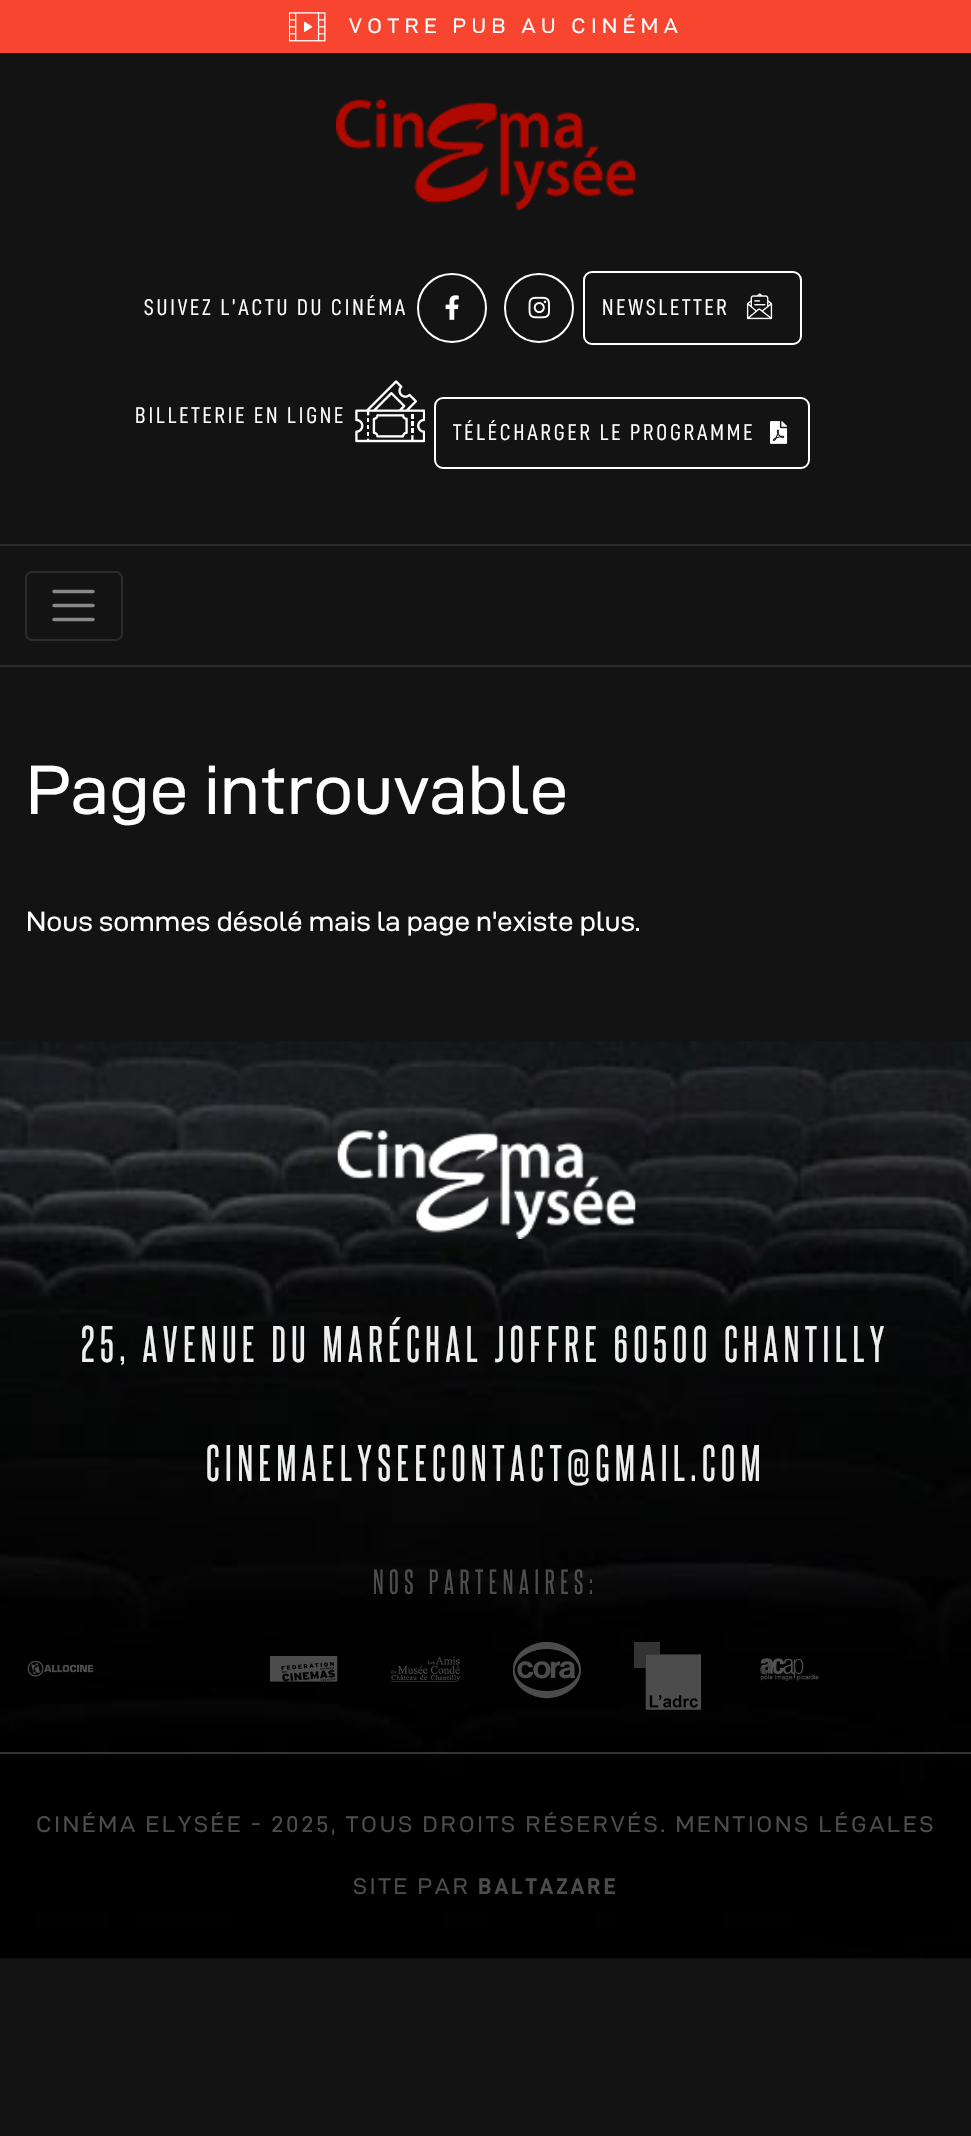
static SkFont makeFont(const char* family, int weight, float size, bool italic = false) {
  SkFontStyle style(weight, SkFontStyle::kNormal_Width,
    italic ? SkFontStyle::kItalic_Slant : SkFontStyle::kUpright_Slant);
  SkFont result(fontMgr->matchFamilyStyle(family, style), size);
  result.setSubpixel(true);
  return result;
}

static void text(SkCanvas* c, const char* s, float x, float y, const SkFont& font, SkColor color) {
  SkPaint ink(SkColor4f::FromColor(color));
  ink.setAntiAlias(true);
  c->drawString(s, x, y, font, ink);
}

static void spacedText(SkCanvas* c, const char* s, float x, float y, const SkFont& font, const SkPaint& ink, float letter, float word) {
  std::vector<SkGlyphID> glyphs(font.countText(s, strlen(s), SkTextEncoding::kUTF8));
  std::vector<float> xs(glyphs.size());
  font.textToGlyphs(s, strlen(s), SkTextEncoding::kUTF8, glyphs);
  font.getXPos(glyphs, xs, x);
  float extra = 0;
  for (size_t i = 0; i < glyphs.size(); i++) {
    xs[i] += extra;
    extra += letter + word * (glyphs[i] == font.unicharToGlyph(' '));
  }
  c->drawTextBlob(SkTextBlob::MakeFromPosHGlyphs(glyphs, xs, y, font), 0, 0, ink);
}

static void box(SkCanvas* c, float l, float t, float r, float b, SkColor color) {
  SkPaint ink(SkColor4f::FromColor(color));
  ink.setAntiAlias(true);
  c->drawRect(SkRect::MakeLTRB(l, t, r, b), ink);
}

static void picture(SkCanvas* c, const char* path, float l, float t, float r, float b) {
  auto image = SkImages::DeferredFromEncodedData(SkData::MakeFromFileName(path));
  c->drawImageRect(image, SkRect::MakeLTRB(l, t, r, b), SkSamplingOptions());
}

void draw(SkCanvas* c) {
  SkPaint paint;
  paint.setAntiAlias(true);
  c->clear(0xff141313);
  box(c, 0, 0, 971, 53, 0xfff8452f);
  picture(c, "img_01.png", 289, 12, 326, 42);
  SkFont face1 = makeFont("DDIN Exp", 400, 21);
  paint.setColor(0xffffffff);
  spacedText(c, "VOTRE PUB AU CINÉMA", 349, 33, face1, paint, 5.6f, 0);
  picture(c, "img_02.png", 336, 99, 636, 210);
  SkFont face2 = makeFont("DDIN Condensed", 400, 22.75f);
  spacedText(c, "SUIVEZ L’ACTU DU CINÉMA", 144, 315, face2, paint, 2.8f, 0);
  paint.setStyle(SkPaint::kStroke_Style);
  paint.setStrokeWidth(2);
  c->drawCircle(452, 308, 34, paint);
  picture(c, "img_03.png", 445, 295, 459, 320);
  c->drawCircle(539, 308, 34, paint);
  picture(c, "img_04.png", 528, 296, 550, 319);
  c->drawRoundRect(SkRect::MakeLTRB(584, 272, 801, 344), 8, 8, paint);
  paint.setStyle(SkPaint::kFill_Style);
  spacedText(c, "NEWSLETTER", 602, 315, face2, paint, 2.8f, 0);
  picture(c, "img_05.png", 746, 293, 773, 320);
  spacedText(c, "BILLETERIE EN LIGNE", 135, 423, face2, paint, 2.8f, 0);
  picture(c, "img_06.png", 355, 380, 425, 443);
  paint.setStyle(SkPaint::kStroke_Style);
  c->drawRoundRect(SkRect::MakeLTRB(435, 398, 809, 468), 8, 8, paint);
  paint.setStyle(SkPaint::kFill_Style);
  spacedText(c, "TÉLÉCHARGER LE PROGRAMME", 453, 440, face2, paint, 2.8f, 0);
  picture(c, "img_07.png", 770, 421, 788, 444);
  box(c, 0, 544, 971, 546, 0xff2c2b2b);
  box(c, 0, 665, 971, 667, 0xff2c2b2b);
  paint.setStyle(SkPaint::kStroke_Style);
  paint.setColor(0xff2c2b2b);
  c->drawRoundRect(SkRect::MakeLTRB(26, 572, 122, 640), 6, 6, paint);
  paint.setStrokeWidth(3.5f);
  paint.setStrokeCap(SkPaint::kRound_Cap);
  paint.setColor(0xff8a8989);
  c->drawPath(SkPathBuilder().moveTo(54, 591.5f).lineTo(93, 591.5f).moveTo(54, 605.5f).lineTo(93, 605.5f).moveTo(54, 619.5f).lineTo(93, 619.5f).detach(), paint);
  SkFont face3 = makeFont("DDIN Exp", 400, 70);
  text(c, "Page introuvable", 26, 814, face3, 0xffffffff);
  SkFont face4 = makeFont("DDIN Exp", 400, 28);
  text(c, "Nous sommes désolé mais la page n'existe plus.", 26, 931, face4, 0xffffffff);
  picture(c, "img_08.png", 0, 1041, 971, 1959);
  picture(c, "img_09.png", 337, 1130, 636, 1239);
  SkFont face5 = makeFont("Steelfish", 400, 43.75f);
  paint.setStyle(SkPaint::kFill_Style);
  paint.setColor(0xffeeeeee);
  spacedText(c, "25, AVENUE DU MARÉCHAL JOFFRE 60500 CHANTILLY", 81, 1362, face5, paint, 5.6f, 0);
  spacedText(c, "CINEMAELYSEECONTACT@GMAIL.COM", 206, 1481, face5, paint, 5.6f, 0);
  SkFont face6 = makeFont("Steelfish", 400, 29.75f);
  paint.setColor(0xff4c4c4c);
  spacedText(c, "NOS PARTENAIRES:", 373, 1594, face6, paint, 5.6f, 0);
  picture(c, "img_10.png", 27, 1661, 94, 1677);
  picture(c, "img_11.png", 270, 1656, 338, 1682);
  picture(c, "img_12.png", 390, 1656, 460, 1682);
  picture(c, "img_13.png", 513, 1642, 581, 1699);
  picture(c, "img_14.png", 634, 1642, 702, 1710);
  picture(c, "img_15.png", 760, 1658, 819, 1681);
  box(c, 0, 1752, 971, 1754, 0x33ffffff);
  SkFont face7 = makeFont("DDIN Exp", 400, 22.75f);
  spacedText(c, "CINÉMA ELYSÉE - 2025, TOUS DROITS RÉSERVÉS. MENTIONS LÉGALES", 36, 1832, face7, paint, 2.8f, 0);
  spacedText(c, "SITE PAR", 353, 1894, face7, paint, 2.8f, 0);
  SkFont face8 = makeFont("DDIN", 700, 22.75f);
  spacedText(c, "BALTAZARE", 478, 1894, face8, paint, 2.8f, 0);
}
